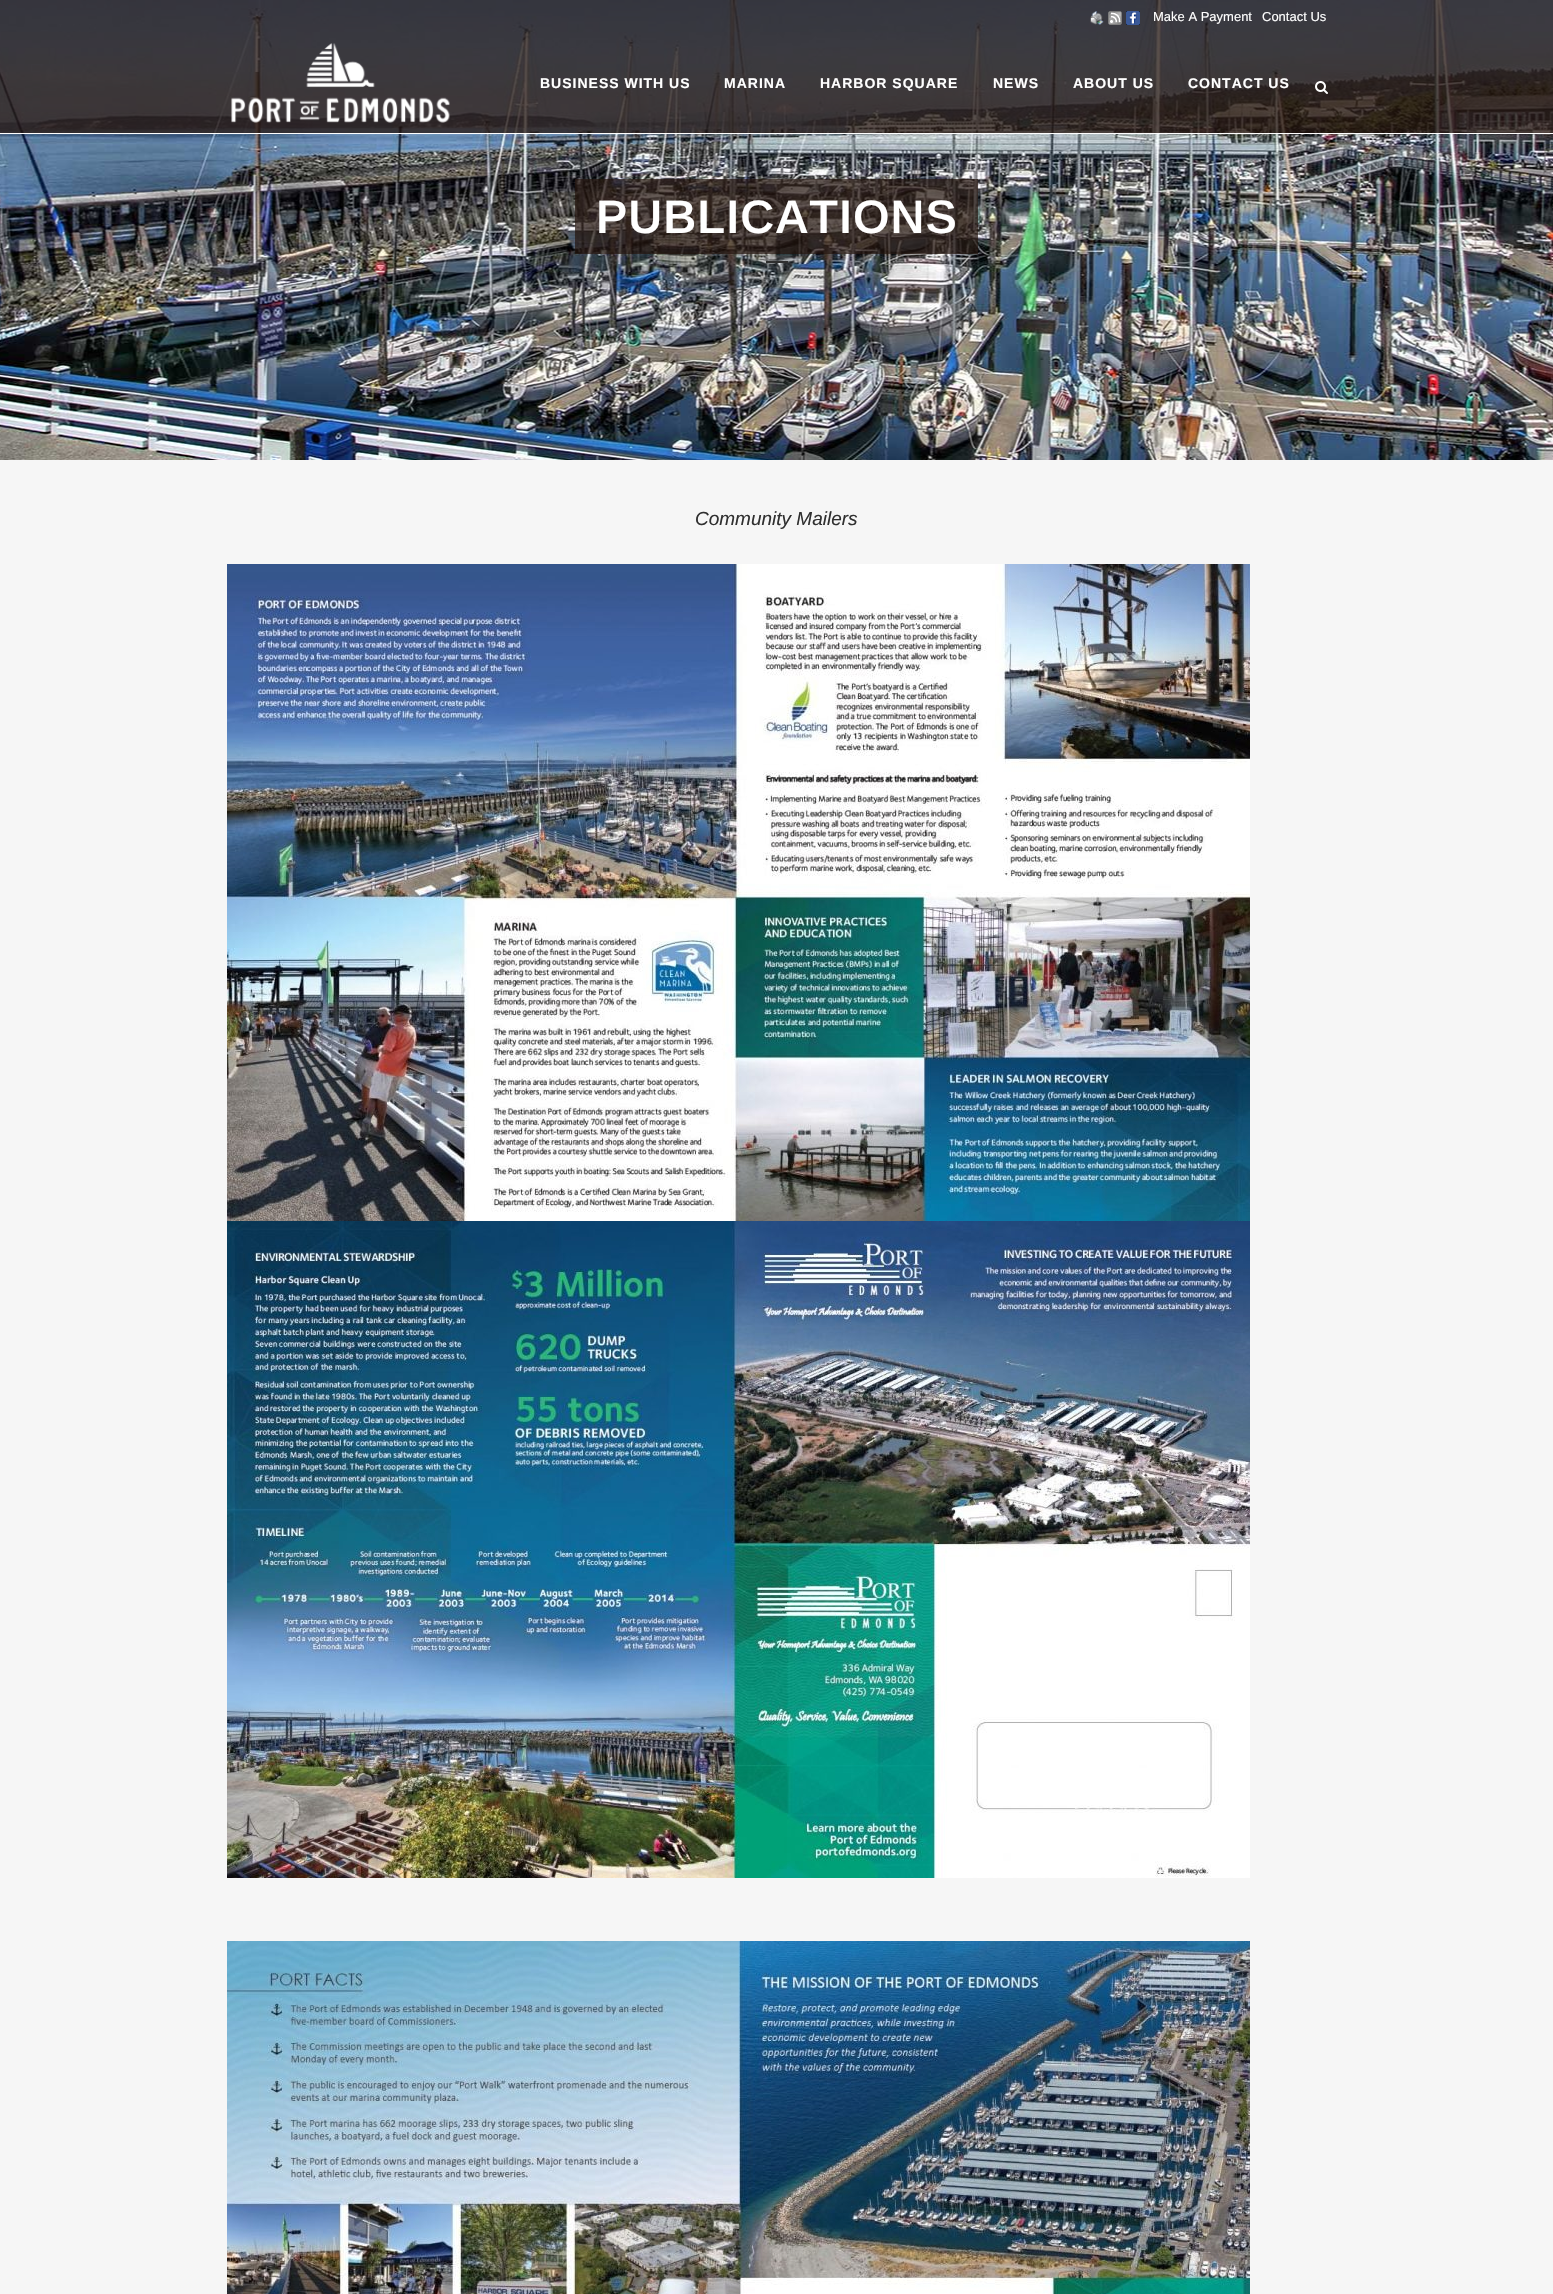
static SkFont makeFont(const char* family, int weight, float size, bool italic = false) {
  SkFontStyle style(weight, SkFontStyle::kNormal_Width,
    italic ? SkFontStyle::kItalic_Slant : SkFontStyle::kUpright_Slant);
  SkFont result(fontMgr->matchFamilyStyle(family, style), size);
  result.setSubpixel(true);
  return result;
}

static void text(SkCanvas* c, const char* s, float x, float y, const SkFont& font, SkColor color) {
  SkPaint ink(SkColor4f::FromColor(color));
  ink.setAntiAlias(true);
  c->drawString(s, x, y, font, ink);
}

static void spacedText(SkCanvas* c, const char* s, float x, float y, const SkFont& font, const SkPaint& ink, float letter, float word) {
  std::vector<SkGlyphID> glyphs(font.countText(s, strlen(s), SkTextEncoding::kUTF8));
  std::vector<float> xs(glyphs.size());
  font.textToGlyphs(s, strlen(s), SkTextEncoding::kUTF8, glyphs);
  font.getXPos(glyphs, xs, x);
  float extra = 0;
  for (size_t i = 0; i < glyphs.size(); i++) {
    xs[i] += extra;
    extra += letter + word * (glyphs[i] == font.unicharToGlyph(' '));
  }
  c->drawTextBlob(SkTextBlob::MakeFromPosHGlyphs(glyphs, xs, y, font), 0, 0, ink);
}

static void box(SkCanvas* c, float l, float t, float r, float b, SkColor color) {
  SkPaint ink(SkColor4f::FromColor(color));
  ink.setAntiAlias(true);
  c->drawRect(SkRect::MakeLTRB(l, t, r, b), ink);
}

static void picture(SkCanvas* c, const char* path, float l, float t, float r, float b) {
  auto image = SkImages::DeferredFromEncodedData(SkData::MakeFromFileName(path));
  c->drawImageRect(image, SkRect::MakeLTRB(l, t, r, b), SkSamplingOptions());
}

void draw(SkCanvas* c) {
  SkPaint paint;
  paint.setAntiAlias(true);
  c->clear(0xfff6f6f6);
  picture(c, "img_06.png", 0, 0, 1553, 460);
  box(c, 0, 0, 1553, 33, 0xbf24140d);
  picture(c, "img_01.png", 1090, 11, 1104, 25);
  picture(c, "img_02.png", 1108, 11, 1122, 25);
  picture(c, "img_03.png", 1126, 11, 1140, 25);
  SkFont face1 = makeFont("Arimo", 400, 13);
  text(c, "Make A Payment", 1153, 21, face1, 0xffffffff);
  text(c, "Contact Us", 1262, 21, face1, 0xffffffff);
  box(c, 0, 33, 1553, 133, 0xbf24140d);
  box(c, 0, 133, 1553, 134, 0xffffffff);
  picture(c, "img_04.png", 231, 43, 450, 123);
  SkFont face2 = makeFont("Arimo", 700, 14);
  paint.setColor(0xffffffff);
  spacedText(c, "BUSINESS WITH US", 540, 88, face2, paint, 1, 0);
  spacedText(c, "MARINA", 724, 88, face2, paint, 1, 0);
  spacedText(c, "HARBOR SQUARE", 820, 88, face2, paint, 1, 0);
  spacedText(c, "NEWS", 993, 88, face2, paint, 1, 0);
  spacedText(c, "ABOUT US", 1073, 88, face2, paint, 1, 0);
  spacedText(c, "CONTACT US", 1188, 88, face2, paint, 1, 0);
  picture(c, "img_05.png", 1315, 81, 1328, 94);
  box(c, 575, 179, 978, 254, 0xb324140d);
  SkFont face3 = makeFont("Arimo", 600, 47);
  spacedText(c, "PUBLICATIONS", 596, 233, face3, paint, 1, 0);
  box(c, 766, 261, 788, 263, 0xff303030);
  SkFont face4 = makeFont("Arimo", 400, 19, true);
  text(c, "Community Mailers", 695, 525, face4, 0xff303030);
  picture(c, "img_07.png", 227, 564, 1250, 1221);
  picture(c, "img_08.png", 227, 1221, 1250, 1878);
  picture(c, "img_09.png", 227, 1941, 1250, 2294);
}
